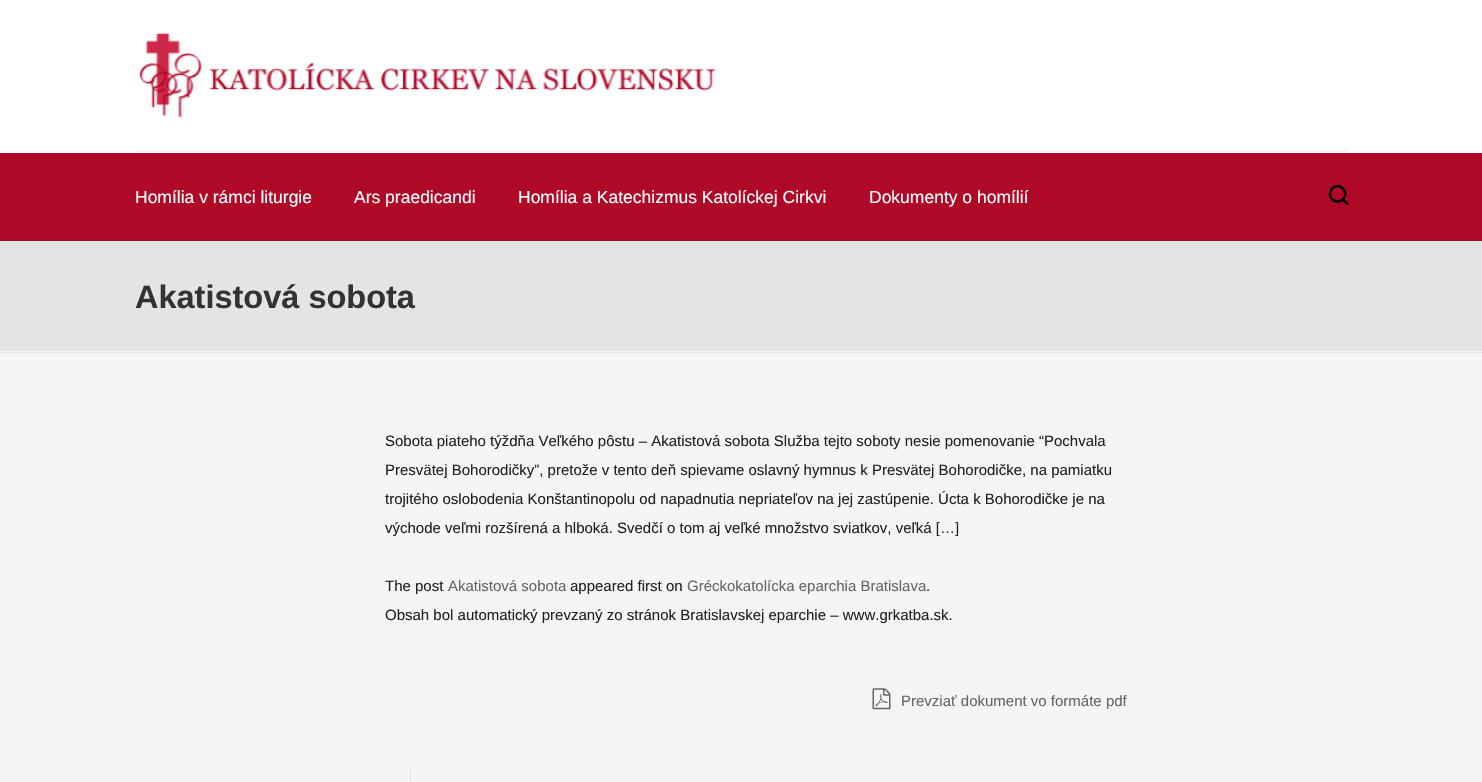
static SkFont makeFont(const char* family, int weight, float size, bool italic = false) {
  SkFontStyle style(weight, SkFontStyle::kNormal_Width,
    italic ? SkFontStyle::kItalic_Slant : SkFontStyle::kUpright_Slant);
  SkFont result(fontMgr->matchFamilyStyle(family, style), size);
  result.setSubpixel(true);
  return result;
}

static void text(SkCanvas* c, const char* s, float x, float y, const SkFont& font, SkColor color) {
  SkPaint ink(SkColor4f::FromColor(color));
  ink.setAntiAlias(true);
  c->drawString(s, x, y, font, ink);
}

static void box(SkCanvas* c, float l, float t, float r, float b, SkColor color) {
  SkPaint ink(SkColor4f::FromColor(color));
  ink.setAntiAlias(true);
  c->drawRect(SkRect::MakeLTRB(l, t, r, b), ink);
}

static void picture(SkCanvas* c, const char* path, float l, float t, float r, float b) {
  auto image = SkImages::DeferredFromEncodedData(SkData::MakeFromFileName(path));
  c->drawImageRect(image, SkRect::MakeLTRB(l, t, r, b), SkSamplingOptions());
}

void draw(SkCanvas* c) {
  SkPaint paint;
  paint.setAntiAlias(true);
  c->clear(0xfff5f5f5);
  box(c, 0, 0, 1482, 153, 0xffffffff);
  picture(c, "img_01.png", 139, 33, 716, 118);
  box(c, 135, 151, 1348, 152, 0xfff0f0f0);
  box(c, 0, 153, 1482, 241, 0xffb00927);
  SkFont face1 = makeFont("Liberation Sans", 400, 17.5f);
  text(c, "Homília v rámci liturgie", 135, 203, face1, 0xffffffff);
  text(c, "Ars praedicandi", 354, 203, face1, 0xffffffff);
  text(c, "Homília a Katechizmus Katolíckej Cirkvi", 518, 203, face1, 0xffffffff);
  text(c, "Dokumenty o homílií", 869, 203, face1, 0xffffffff);
  picture(c, "img_02.png", 1328, 185, 1349, 206);
  box(c, 0, 241, 1482, 353, 0xffe4e4e4);
  box(c, 0, 351, 1482, 352, 0xfff5f5f5);
  SkFont face2 = makeFont("Liberation Sans", 700, 32.5f);
  text(c, "Akatistová sobota", 135, 308, face2, 0xff333333);
  SkFont face3 = makeFont("Liberation Sans", 400, 15);
  text(c, "Sobota piateho týždňa Veľkého pôstu – Akatistová sobota Služba tejto soboty nesie pomenovanie “Pochvala", 385, 446, face3, 0xff222222);
  text(c, "Presvätej Bohorodičky”, pretože v tento deň spievame oslavný hymnus k Presvätej Bohorodičke, na pamiatku", 385, 475, face3, 0xff222222);
  text(c, "trojitého oslobodenia Konštantinopolu od napadnutia nepriateľov na jej zastúpenie. Úcta k Bohorodičke je na", 385, 504, face3, 0xff222222);
  text(c, "východe veľmi rozšírená a hlboká. Svedčí o tom aj veľké množstvo sviatkov, veľká […]", 385, 533, face3, 0xff222222);
  text(c, "The post", 385, 591, face3, 0xff222222);
  text(c, "Akatistová sobota", 448, 591, face3, 0xff62666c);
  text(c, "appeared first on", 570, 591, face3, 0xff222222);
  text(c, "Gréckokatolícka eparchia Bratislava", 687, 591, face3, 0xff62666c);
  text(c, ".", 926, 591, face3, 0xff222222);
  text(c, "Obsah bol automatický prevzaný zo stránok Bratislavskej eparchie – www.grkatba.sk.", 385, 620, face3, 0xff222222);
  picture(c, "img_03.png", 872, 688, 891, 710);
  text(c, "Prevziať dokument vo formáte pdf", 901, 706, face3, 0xff62666c);
  box(c, 410, 766, 411, 782, 0xffe3e3e3);
}
